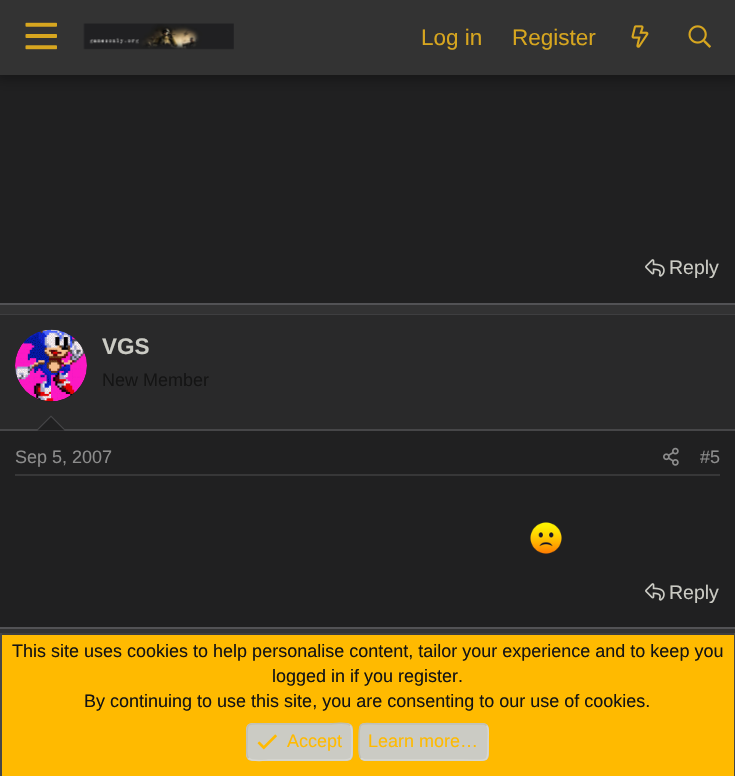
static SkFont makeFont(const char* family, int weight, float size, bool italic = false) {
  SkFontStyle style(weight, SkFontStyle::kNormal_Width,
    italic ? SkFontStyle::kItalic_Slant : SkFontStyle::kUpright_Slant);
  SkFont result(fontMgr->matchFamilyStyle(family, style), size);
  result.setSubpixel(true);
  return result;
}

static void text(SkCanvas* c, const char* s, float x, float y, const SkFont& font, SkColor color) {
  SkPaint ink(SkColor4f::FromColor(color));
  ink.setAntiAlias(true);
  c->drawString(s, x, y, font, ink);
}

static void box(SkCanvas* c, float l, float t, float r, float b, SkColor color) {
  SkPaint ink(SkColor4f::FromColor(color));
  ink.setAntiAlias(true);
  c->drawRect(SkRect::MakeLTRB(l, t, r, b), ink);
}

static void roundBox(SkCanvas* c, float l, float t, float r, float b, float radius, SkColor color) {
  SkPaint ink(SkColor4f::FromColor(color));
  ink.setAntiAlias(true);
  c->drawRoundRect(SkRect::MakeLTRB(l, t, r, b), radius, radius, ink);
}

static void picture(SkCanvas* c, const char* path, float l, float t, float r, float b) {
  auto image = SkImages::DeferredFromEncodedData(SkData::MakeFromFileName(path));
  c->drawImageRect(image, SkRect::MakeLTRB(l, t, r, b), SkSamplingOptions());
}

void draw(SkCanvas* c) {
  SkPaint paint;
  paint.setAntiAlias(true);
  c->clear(0xff323233);
  box(c, 0, 75, 735, 303, 0xff202021);
  paint.setColor(0x4d000000);
  paint.setMaskFilter(SkMaskFilter::MakeBlur(kNormal_SkBlurStyle, 6));
  c->drawRect(SkRect::MakeLTRB(-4, -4, 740, 80), paint);
  paint.setMaskFilter(nullptr);
  box(c, 0, 0, 735, 75, 0xff333333);
  picture(c, "img_01.png", 25, 22, 57, 50);
  picture(c, "img_02.png", 83, 23, 234, 50);
  SkFont face1 = makeFont("Liberation Sans", 400, 22.5f);
  text(c, "Log in", 421, 45, face1, 0xffd7a61f);
  text(c, "Register", 512, 45, face1, 0xffd7a61f);
  picture(c, "img_03.png", 631, 25, 649, 48);
  picture(c, "img_04.png", 688, 25, 711, 48);
  box(c, 0, 303, 735, 305, 0xff525255);
  picture(c, "img_05.png", 645, 259, 665, 277);
  SkFont face2 = makeFont("Liberation Sans", 400, 19.5f);
  text(c, "Reply", 669, 274, face2, 0xffcbcbc4);
  box(c, 0, 431, 735, 627, 0xff202021);
  box(c, 0, 314, 735, 315, 0xff3e3e40);
  box(c, 0, 627, 735, 629, 0xff525255);
  box(c, 0, 315, 735, 429, 0xff29292a);
  box(c, 0, 429, 735, 431, 0xff464648);
  paint.setColor(0xff202021);
  c->drawCircle(51, 366, 36, paint);
  picture(c, "img_06.png", 15, 329, 87, 402);
  SkFont face3 = makeFont("Liberation Sans", 700, 22.5f);
  text(c, "VGS", 102, 354, face3, 0xffcbcbc4);
  SkFont face4 = makeFont("Liberation Sans", 400, 18);
  text(c, "New Member", 102, 386, face4, 0xff141414);
  paint.setColor(0xff464648);
  c->drawPath(SkPathBuilder().moveTo(66, 430.5f).lineTo(36, 430.5f).lineTo(51, 415.5f).close().detach(), paint);
  paint.setColor(0xff202021);
  c->drawPath(SkPathBuilder().moveTo(64.5f, 430.5f).lineTo(37.5f, 430.5f).lineTo(51, 417).close().detach(), paint);
  box(c, 15, 474, 720, 476, 0xff373738);
  text(c, "Sep 5, 2007", 15, 463, face4, 0xff8c8c8c);
  picture(c, "img_07.png", 663, 447, 679, 466);
  text(c, "#5", 700, 463, face4, 0xff8c8c8c);
  picture(c, "img_08.png", 530, 522, 562, 554);
  picture(c, "img_05.png", 645, 583, 665, 601);
  text(c, "Reply", 669, 599, face2, 0xffcbcbc4);
  box(c, 2, 635, 734, 776, 0xffffba00);
  box(c, 0, 633, 735, 635, 0xff3e3e40);
  box(c, 734, 633, 735, 776, 0xff464648);
  box(c, 0, 633, 2, 776, 0xff464648);
  text(c, "This site uses cookies to help personalise content, tailor your experience and to keep you", 12, 657, face4, 0xff141414);
  text(c, "logged in if you register.", 272, 682, face4, 0xff141414);
  text(c, "By continuing to use this site, you are consenting to our use of cookies.", 84, 707, face4, 0xff141414);
  roundBox(c, 246, 723, 353, 761, 6, 0xffcbcbc4);
  paint.setStyle(SkPaint::kStroke_Style);
  paint.setStrokeWidth(1.5f);
  paint.setColor(0xffd7d7d2);
  c->drawPath(SkPathBuilder().moveTo(350, 725.5f).cubicTo(353, 728, 352, 738, 352, 742).cubicTo(352, 763, 353.5f, 760, 331, 760).lineTo(268, 760).cubicTo(266, 760, 252, 762, 248.5f, 758).detach(), paint);
  paint.setColor(0xffbfbfb6);
  c->drawPath(SkPathBuilder().moveTo(248.5f, 758).cubicTo(245.5f, 755.5f, 247, 745.5f, 247, 742).cubicTo(247, 720.5f, 245, 724, 268, 724).lineTo(331, 724).cubicTo(332.5f, 724, 346.5f, 721.5f, 350, 725.5f).detach(), paint);
  picture(c, "img_09.png", 257, 734, 277, 750);
  text(c, "Accept", 287, 747, face4, 0xffffba00);
  roundBox(c, 359, 723, 489, 761, 6, 0xffcbcbc4);
  paint.setColor(0xffd7d7d2);
  c->drawPath(SkPathBuilder().moveTo(486.5f, 725.5f).cubicTo(489.5f, 728, 488, 738, 488, 742).cubicTo(488, 764.5f, 489.5f, 760, 463, 760).lineTo(364.5f, 760).cubicTo(363, 759.5f, 362, 759, 361, 758).detach(), paint);
  paint.setColor(0xffbfbfb6);
  c->drawPath(SkPathBuilder().moveTo(361, 758).cubicTo(358, 755.5f, 359, 745.5f, 359, 742).cubicTo(359, 719, 358, 724, 384, 724).lineTo(483, 724).cubicTo(484.5f, 724, 485.5f, 724.5f, 486.5f, 725.5f).detach(), paint);
  text(c, "Learn more…", 368, 747, face4, 0xffffba00);
}
